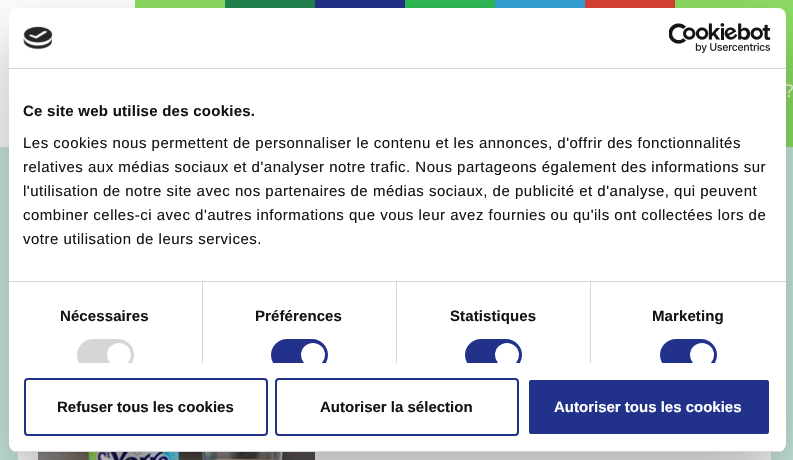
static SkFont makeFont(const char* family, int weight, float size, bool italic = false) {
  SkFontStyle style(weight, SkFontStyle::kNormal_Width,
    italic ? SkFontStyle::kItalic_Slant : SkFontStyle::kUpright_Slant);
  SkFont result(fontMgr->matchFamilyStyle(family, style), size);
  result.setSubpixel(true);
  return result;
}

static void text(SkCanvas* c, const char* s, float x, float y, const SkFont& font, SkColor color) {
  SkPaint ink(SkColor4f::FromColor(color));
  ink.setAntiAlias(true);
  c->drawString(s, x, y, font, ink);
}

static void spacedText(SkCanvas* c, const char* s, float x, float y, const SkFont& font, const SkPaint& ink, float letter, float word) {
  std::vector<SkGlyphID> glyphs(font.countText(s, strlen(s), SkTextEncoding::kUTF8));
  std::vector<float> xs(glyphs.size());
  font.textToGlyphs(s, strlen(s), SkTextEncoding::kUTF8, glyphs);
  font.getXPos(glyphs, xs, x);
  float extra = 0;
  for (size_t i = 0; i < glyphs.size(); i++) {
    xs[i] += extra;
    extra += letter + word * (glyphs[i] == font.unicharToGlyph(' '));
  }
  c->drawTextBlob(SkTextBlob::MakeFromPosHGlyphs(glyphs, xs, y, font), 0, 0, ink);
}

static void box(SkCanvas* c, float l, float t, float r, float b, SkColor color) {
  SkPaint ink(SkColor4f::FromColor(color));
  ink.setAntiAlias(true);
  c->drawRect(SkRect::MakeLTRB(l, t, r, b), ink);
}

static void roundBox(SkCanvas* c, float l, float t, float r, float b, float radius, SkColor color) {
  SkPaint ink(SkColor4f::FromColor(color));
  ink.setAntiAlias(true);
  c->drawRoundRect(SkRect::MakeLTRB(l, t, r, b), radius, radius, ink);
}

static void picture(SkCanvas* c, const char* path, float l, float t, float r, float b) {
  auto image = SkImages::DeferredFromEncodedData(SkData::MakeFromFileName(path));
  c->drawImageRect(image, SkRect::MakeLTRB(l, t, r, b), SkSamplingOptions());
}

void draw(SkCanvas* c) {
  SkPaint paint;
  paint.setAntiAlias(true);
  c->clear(0xffffffff);
  picture(c, "img_01.png", 0, 147, 793, 460);
  box(c, 135, 0, 225, 8, 0xff8edd65);
  box(c, 225, 0, 315, 8, 0xff218550);
  box(c, 315, 0, 405, 8, 0xff22328a);
  box(c, 405, 0, 495, 8, 0xff2fba54);
  box(c, 495, 0, 585, 8, 0xff36a3d9);
  box(c, 585, 0, 675, 8, 0xffd94136);
  box(c, 675, 0, 793, 147, 0xff8edd65);
  SkFont face1 = makeFont("Montserrat", 400, 18);
  paint.setColor(0xffffffff);
  spacedText(c, "?", 784, 97, face1, paint, -1, 0);
  box(c, 18, 452, 771, 460, 0xffffffff);
  picture(c, "img_02.png", 38, 452, 315, 460);
  paint.setColor(0x4d000000);
  paint.setMaskFilter(SkMaskFilter::MakeBlur(kNormal_SkBlurStyle, 34));
  c->drawRoundRect(SkRect::MakeLTRB(9, 40, 786, 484), 8, 8, paint);
  paint.setMaskFilter(nullptr);
  roundBox(c, 9, 8, 786, 452, 8, 0xffffffff);
  box(c, 9, 68, 786, 69, 0xffd6d6d6);
  picture(c, "img_03.png", 23, 26, 53, 50);
  picture(c, "img_04.png", 669, 23, 771, 53);
  box(c, 9, 281, 786, 282, 0xffd6d6d6);
  SkFont face2 = makeFont("Liberation Sans", 700, 15);
  paint.setColor(0xff141414);
  spacedText(c, "Ce site web utilise des cookies.", 23, 116, face2, paint, 0.25f, 0);
  SkFont face3 = makeFont("Liberation Sans", 400, 15);
  spacedText(c, "Les cookies nous permettent de personnaliser le contenu et les annonces, d'offrir des fonctionnalités", 23, 148, face3, paint, 0.5f, 0);
  spacedText(c, "relatives aux médias sociaux et d'analyser notre trafic. Nous partageons également des informations sur", 23, 172, face3, paint, 0.5f, 0);
  spacedText(c, "l'utilisation de notre site avec nos partenaires de médias sociaux, de publicité et d'analyse, qui peuvent", 23, 196, face3, paint, 0.5f, 0);
  spacedText(c, "combiner celles-ci avec d'autres informations que vous leur avez fournies ou qu'ils ont collectées lors de", 23, 220, face3, paint, 0.5f, 0);
  spacedText(c, "votre utilisation de leurs services.", 23, 244, face3, paint, 0.5f, 0);
  box(c, 202, 282, 203, 363, 0xffd6d6d6);
  spacedText(c, "Nécessaires", 60, 321, face2, paint, 0.1f, 0);
  c->save();
  c->clipRect(SkRect::MakeLTRB(9, 69, 786, 363));
  roundBox(c, 77, 339, 134, 371, 16, 0xffd6d6d6);
  paint.setColor(0xffffffff);
  c->drawCircle(119, 355, 12, paint);
  c->restore();
  box(c, 396, 282, 397, 363, 0xffd6d6d6);
  paint.setColor(0xff141414);
  spacedText(c, "Préférences", 255, 321, face2, paint, 0.1f, 0);
  c->save();
  c->clipRect(SkRect::MakeLTRB(9, 69, 786, 363));
  roundBox(c, 271, 339, 328, 371, 16, 0xff22328a);
  paint.setColor(0xffffffff);
  c->drawCircle(313, 355, 12, paint);
  c->restore();
  box(c, 590, 282, 591, 363, 0xffd6d6d6);
  paint.setColor(0xff141414);
  spacedText(c, "Statistiques", 450, 321, face2, paint, 0.1f, 0);
  c->save();
  c->clipRect(SkRect::MakeLTRB(9, 69, 786, 363));
  roundBox(c, 465, 339, 522, 371, 16, 0xff22328a);
  paint.setColor(0xffffffff);
  c->drawCircle(507, 355, 12, paint);
  c->restore();
  paint.setColor(0xff141414);
  spacedText(c, "Marketing", 652, 321, face2, paint, 0.1f, 0);
  c->save();
  c->clipRect(SkRect::MakeLTRB(9, 69, 786, 363));
  roundBox(c, 660, 339, 717, 371, 16, 0xff22328a);
  paint.setColor(0xffffffff);
  c->drawCircle(702, 355, 12, paint);
  c->restore();
  c->save();
  c->clipPath(SkPathBuilder().moveTo(17, 8).lineTo(778, 8).cubicTo(782.5f, 8, 786, 11.5f, 786, 16).lineTo(786, 444).cubicTo(786, 448.5f, 782.5f, 452, 778, 452).lineTo(17, 452).cubicTo(12.5f, 452, 9, 448.5f, 9, 444).lineTo(9, 16).cubicTo(9, 11.5f, 12.5f, 8, 17, 8).close().detach(), true);
  box(c, 9, 451, 786, 452, 0xffd6d6d6);
  c->restore();
  paint.setStyle(SkPaint::kStroke_Style);
  paint.setStrokeWidth(2);
  paint.setColor(0xff22328a);
  c->drawRoundRect(SkRect::MakeLTRB(25, 379, 267, 435), 3, 3, paint);
  text(c, "Refuser tous les cookies", 57, 412, face2, 0xff141414);
  c->drawRoundRect(SkRect::MakeLTRB(276, 379, 518, 435), 3, 3, paint);
  text(c, "Autoriser la sélection", 320, 412, face2, 0xff141414);
  paint.setStyle(SkPaint::kFill_Style);
  c->drawRoundRect(SkRect::MakeLTRB(528, 379, 770, 435), 3, 3, paint);
  paint.setStyle(SkPaint::kStroke_Style);
  paint.setColor(0xffffffff);
  c->drawRoundRect(SkRect::MakeLTRB(528, 379, 770, 435), 3, 3, paint);
  text(c, "Autoriser tous les cookies", 554, 412, face2, 0xffffffff);
}
